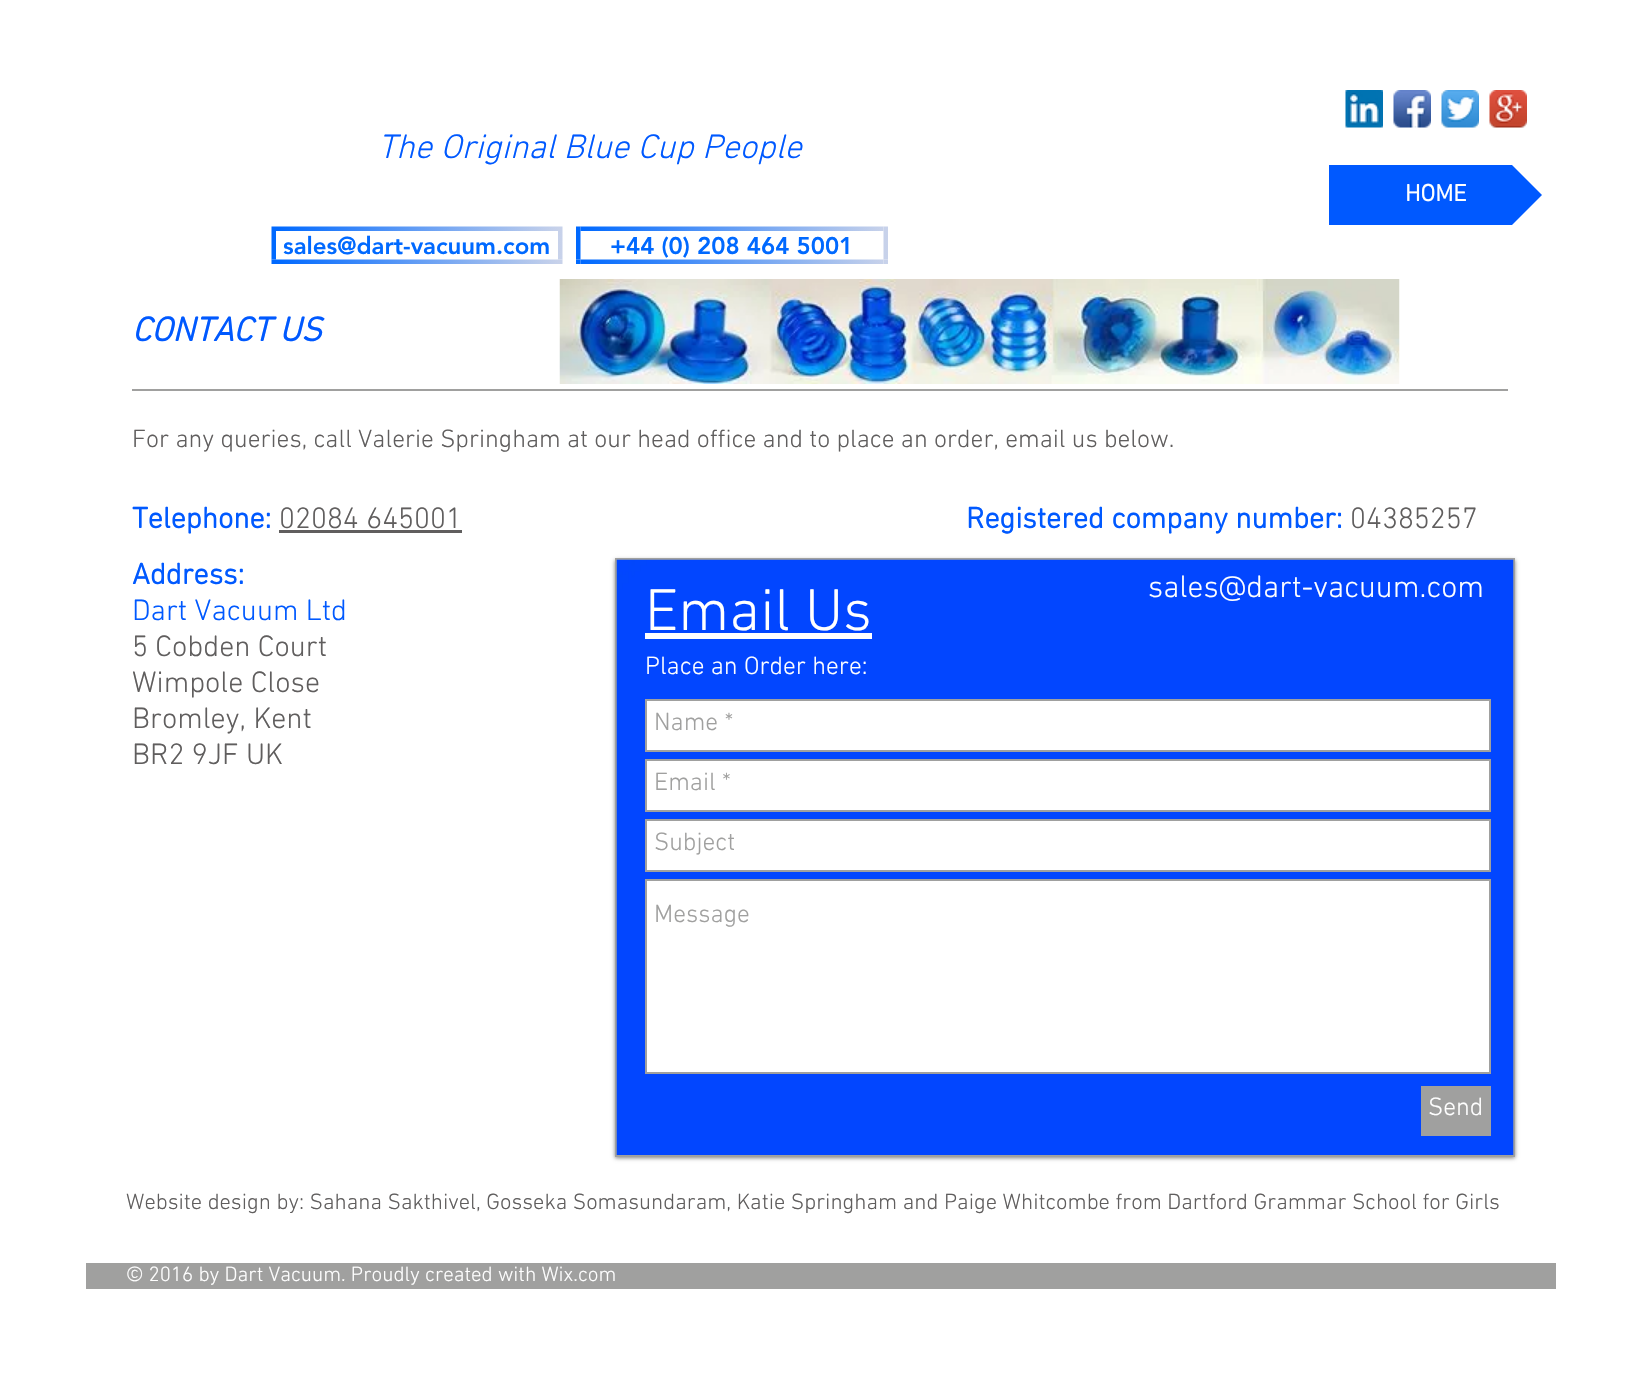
static SkFont makeFont(const char* family, int weight, float size, bool italic = false) {
  SkFontStyle style(weight, SkFontStyle::kNormal_Width,
    italic ? SkFontStyle::kItalic_Slant : SkFontStyle::kUpright_Slant);
  SkFont result(fontMgr->matchFamilyStyle(family, style), size);
  result.setSubpixel(true);
  return result;
}

static void text(SkCanvas* c, const char* s, float x, float y, const SkFont& font, SkColor color) {
  SkPaint ink(SkColor4f::FromColor(color));
  ink.setAntiAlias(true);
  c->drawString(s, x, y, font, ink);
}

static void box(SkCanvas* c, float l, float t, float r, float b, SkColor color) {
  SkPaint ink(SkColor4f::FromColor(color));
  ink.setAntiAlias(true);
  c->drawRect(SkRect::MakeLTRB(l, t, r, b), ink);
}

static void picture(SkCanvas* c, const char* path, float l, float t, float r, float b) {
  auto image = SkImages::DeferredFromEncodedData(SkData::MakeFromFileName(path));
  c->drawImageRect(image, SkRect::MakeLTRB(l, t, r, b), SkSamplingOptions());
}

void draw(SkCanvas* c) {
  SkPaint paint;
  paint.setAntiAlias(true);
  c->clear(0xffffffff);
  picture(c, "img_01.png", 1345, 90, 1383, 128);
  picture(c, "img_02.png", 1393, 90, 1431, 128);
  picture(c, "img_03.png", 1441, 90, 1479, 128);
  picture(c, "img_04.png", 1489, 90, 1527, 128);
  SkFont face1 = makeFont("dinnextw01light", 300, 34.5f, true);
  text(c, "The Original Blue Cup People", 378, 158, face1, 0xff0059ff);
  box(c, 1329, 165, 1467, 225, 0xff0059ff);
  c->save();
  c->clipRect(SkRect::MakeLTRB(1329, 165, 1542, 225));
  paint.setColor(0xff0059ff);
  c->drawPath(SkPathBuilder().moveTo(1542, 195).lineTo(1467, 195).lineTo(1467, 120).close().detach(), paint);
  c->restore();
  SkFont face2 = makeFont("dinnextw01light", 700, 24);
  text(c, "HOME", 1405, 201, face2, 0xffffffff);
  c->save();
  c->clipRect(SkRect::MakeLTRB(1329, 165, 1542, 225));
  c->drawPath(SkPathBuilder().moveTo(1467, 195).lineTo(1542, 195).lineTo(1467, 270).close().detach(), paint);
  c->restore();
  picture(c, "img_05.png", 271, 226, 563, 264);
  SkFont face3 = makeFont("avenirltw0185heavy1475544", 900, 24);
  text(c, "sales@dart-vacuum.com", 283, 254, face3, 0xff0069ff);
  picture(c, "img_06.png", 576, 226, 888, 264);
  text(c, "+44 (0) 208 464 5001", 610, 254, face3, 0xff0069ff);
  SkFont face4 = makeFont("dinnextw01light", 700, 34.5f, true);
  text(c, "CONTACT US", 132, 341, face4, 0xff0059ff);
  picture(c, "img_07.png", 559, 279, 1400, 384);
  box(c, 132, 389, 1508, 391, 0xffa0a09f);
  SkFont face5 = makeFont("dinnextw01light", 300, 25.5f);
  text(c, "For any queries, call Valerie Springham at our head office and to place an order, email us below.", 132, 447, face5, 0xff605e5e);
  SkFont face6 = makeFont("dinnextw01light", 700, 30);
  text(c, "Telephone:", 132, 528, face6, 0xff0059ff);
  SkFont face7 = makeFont("dinnextw01light", 300, 30);
  text(c, "02084 645001", 279, 528, face7, 0xff605e5e);
  box(c, 279, 530, 462, 533, 0xff605e5e);
  text(c, "Registered company number:", 966, 528, face6, 0xff0059ff);
  text(c, "04385257", 1350, 528, face7, 0xff605e5e);
  text(c, "Address:", 132, 584, face6, 0xff0059ff);
  text(c, "Dart Vacuum Ltd", 132, 620, face7, 0xff0059ff);
  text(c, "5 Cobden Court", 132, 656, face7, 0xff605e5e);
  text(c, "Wimpole Close", 132, 692, face7, 0xff605e5e);
  text(c, "Bromley, Kent", 132, 728, face7, 0xff605e5e);
  text(c, "BR2 9JF UK", 132, 764, face7, 0xff605e5e);
  paint.setColor(0x80000000);
  paint.setMaskFilter(SkMaskFilter::MakeBlur(kNormal_SkBlurStyle, 2));
  c->drawRect(SkRect::MakeLTRB(615, 560, 1515, 1158), paint);
  paint.setMaskFilter(nullptr);
  box(c, 615, 558, 1515, 1157, 0xffa0a09f);
  picture(c, "img_08.png", 616, 559, 1514, 1155);
  SkFont face8 = makeFont("dinnextw01light", 300, 60);
  text(c, "Email Us", 645, 630, face8, 0xffffffff);
  box(c, 645, 633, 872, 639, 0xffffffff);
  SkFont face9 = makeFont("dinnextw01light", 300, 31.5f);
  text(c, "sales@dart-vacuum.com", 1148, 597, face9, 0xffffffff);
  text(c, "Place an Order here:", 645, 674, face5, 0xffffffff);
  paint.setColor(0xffffffff);
  c->drawRect(SkRect::MakeLTRB(646, 700, 1490, 751), paint);
  paint.setStyle(SkPaint::kStroke_Style);
  paint.setStrokeWidth(2);
  paint.setColor(0xffa0a09f);
  c->drawRect(SkRect::MakeLTRB(646, 700, 1490, 751), paint);
  text(c, "Name *", 654, 730, face5, 0xffa0a09f);
  paint.setStyle(SkPaint::kFill_Style);
  paint.setColor(0xffffffff);
  c->drawRect(SkRect::MakeLTRB(646, 760, 1490, 811), paint);
  paint.setStyle(SkPaint::kStroke_Style);
  paint.setColor(0xffa0a09f);
  c->drawRect(SkRect::MakeLTRB(646, 760, 1490, 811), paint);
  text(c, "Email *", 654, 790, face5, 0xffa0a09f);
  paint.setStyle(SkPaint::kFill_Style);
  paint.setColor(0xffffffff);
  c->drawRect(SkRect::MakeLTRB(646, 820, 1490, 871), paint);
  paint.setStyle(SkPaint::kStroke_Style);
  paint.setColor(0xffa0a09f);
  c->drawRect(SkRect::MakeLTRB(646, 820, 1490, 871), paint);
  text(c, "Subject", 654, 850, face5, 0xffa0a09f);
  paint.setStyle(SkPaint::kFill_Style);
  paint.setColor(0xffffffff);
  c->drawRect(SkRect::MakeLTRB(646, 880, 1490, 1073), paint);
  paint.setStyle(SkPaint::kStroke_Style);
  paint.setColor(0xffa0a09f);
  c->drawRect(SkRect::MakeLTRB(646, 880, 1490, 1073), paint);
  text(c, "Message", 654, 922, face5, 0xffa0a09f);
  box(c, 1421, 1086, 1491, 1136, 0xffa0a09f);
  text(c, "Send", 1428, 1115, face5, 0xffffffff);
  SkFont face10 = makeFont("dinnextw01light", 300, 22.5f);
  text(c, "Website design by: Sahana Sakthivel, Gosseka Somasundaram, Katie Springham and Paige Whitcombe from Dartford Grammar School for Girls", 126, 1209, face10, 0xff605e5e);
  box(c, 86, 1263, 1556, 1289, 0xffa0a09f);
  SkFont face11 = makeFont("dinnextw01light", 300, 21);
  text(c, "© 2016 by Dart Vacuum. Proudly created with Wix.com", 126, 1281, face11, 0xffffffff);
}
